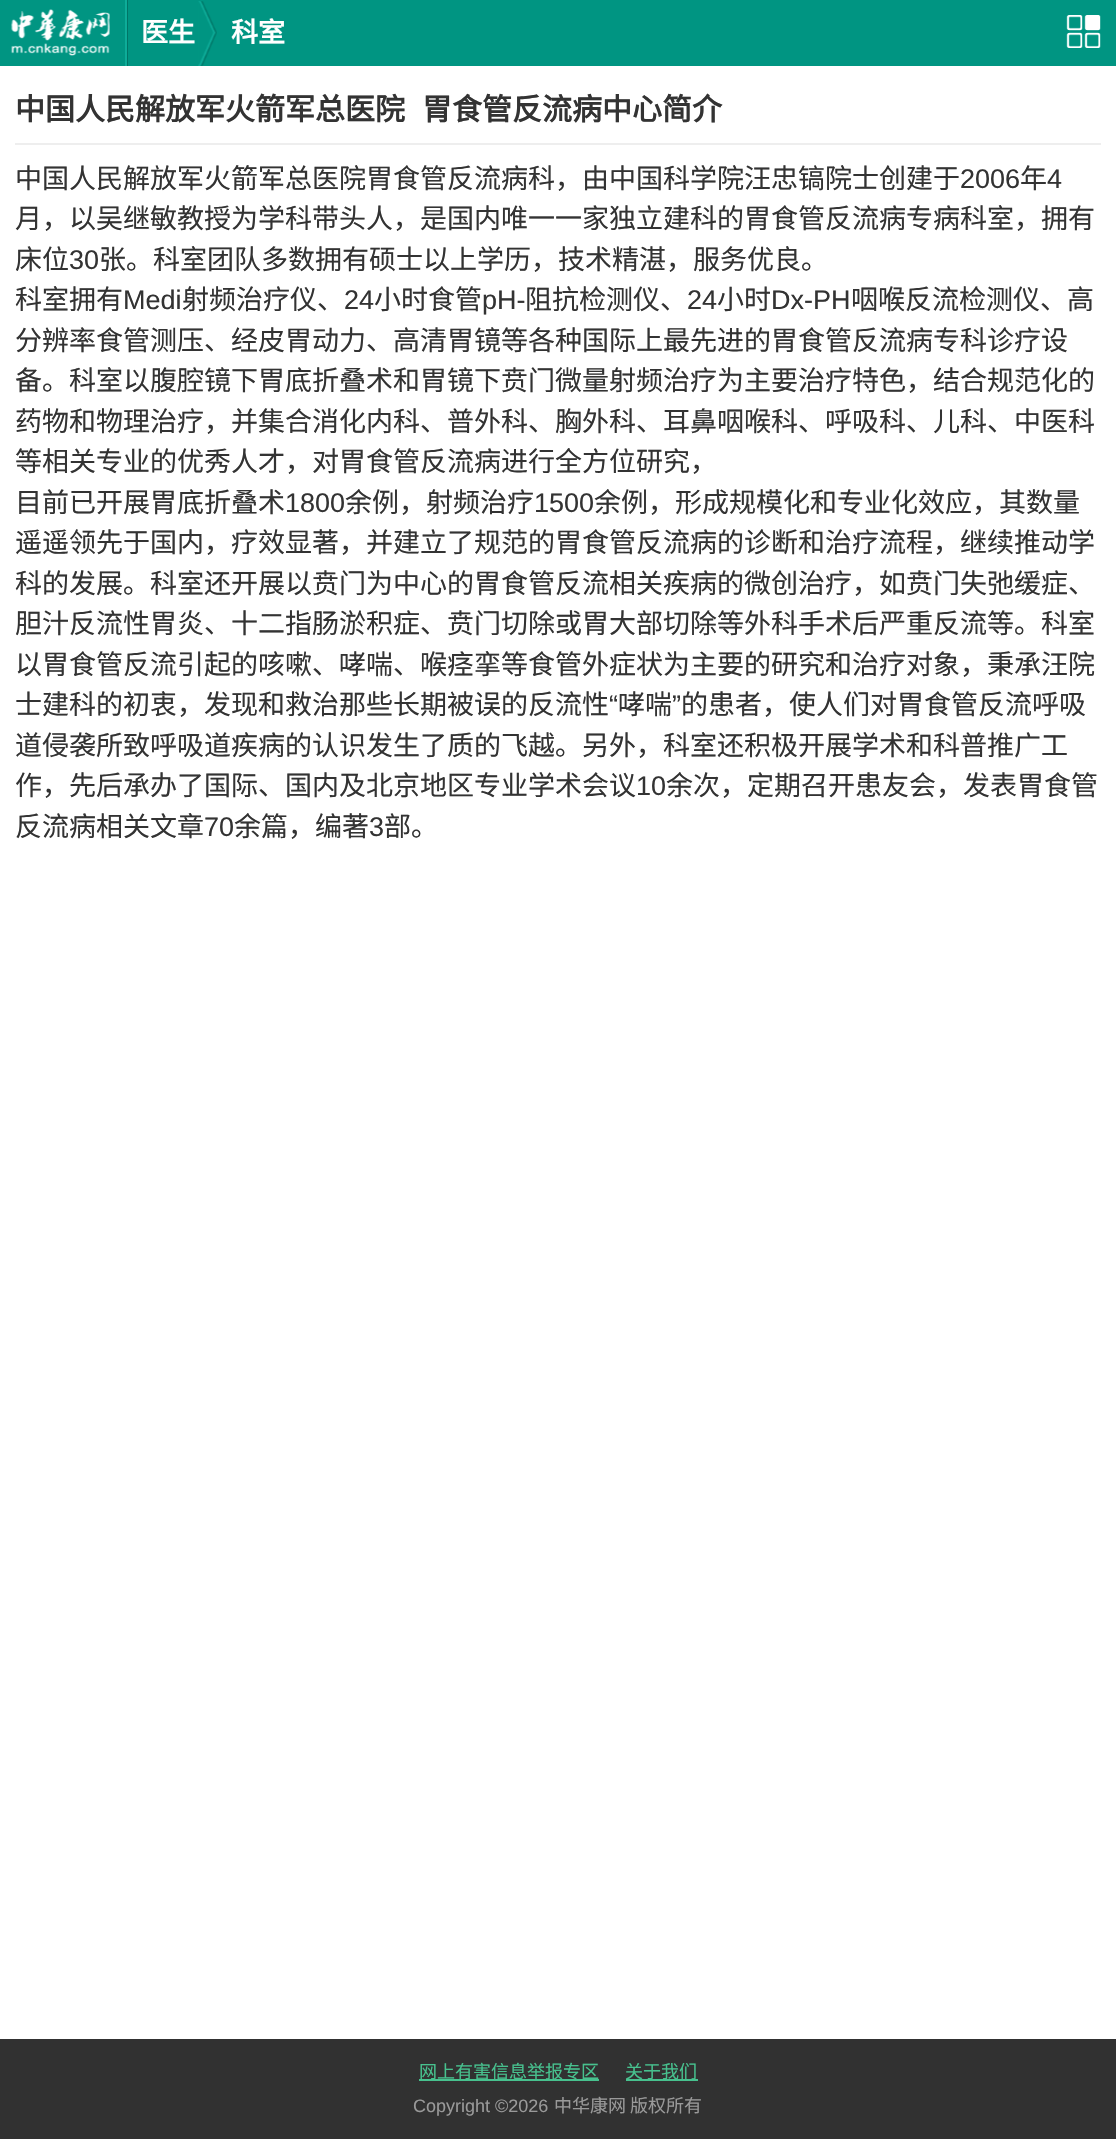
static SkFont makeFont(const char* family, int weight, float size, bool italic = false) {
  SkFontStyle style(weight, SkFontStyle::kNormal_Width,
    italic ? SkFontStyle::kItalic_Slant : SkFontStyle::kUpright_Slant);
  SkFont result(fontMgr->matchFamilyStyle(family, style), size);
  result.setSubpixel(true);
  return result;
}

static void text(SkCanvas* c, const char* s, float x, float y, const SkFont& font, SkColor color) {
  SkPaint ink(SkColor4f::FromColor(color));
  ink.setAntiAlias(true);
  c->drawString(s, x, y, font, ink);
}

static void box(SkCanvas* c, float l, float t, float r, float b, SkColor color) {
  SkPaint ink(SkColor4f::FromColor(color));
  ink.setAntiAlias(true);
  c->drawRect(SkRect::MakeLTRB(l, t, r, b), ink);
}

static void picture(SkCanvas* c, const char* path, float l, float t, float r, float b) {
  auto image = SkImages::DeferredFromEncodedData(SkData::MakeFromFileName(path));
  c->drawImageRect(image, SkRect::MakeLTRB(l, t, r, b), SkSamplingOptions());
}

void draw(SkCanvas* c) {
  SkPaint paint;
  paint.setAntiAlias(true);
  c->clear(0xffffffff);
  box(c, 0, 0, 1116, 66, 0xff009582);
  picture(c, "img_01.png", 11, 9, 110, 56);
  box(c, 127, 0, 128, 66, 0xff007566);
  box(c, 125, 0, 127, 66, 0xff0eac99);
  SkFont face1 = makeFont("Noto Sans CJK SC", 700, 27);
  text(c, "医生", 141, 42, face1, 0xffffffff);
  picture(c, "img_02.png", 198, 1, 217, 66);
  text(c, "科室", 231, 42, face1, 0xffffffff);
  picture(c, "img_03.png", 1066, 15, 1101, 48);
  box(c, 15, 143, 1101, 145, 0xffeeeeee);
  SkFont face2 = makeFont("Noto Sans CJK SC", 700, 30);
  text(c, "中国人民解放军火箭军总医院", 15, 120, face2, 0xff333333);
  text(c, "胃食管反流病中心简介", 422, 120, face2, 0xff333333);
  SkFont face3 = makeFont("Noto Sans CJK SC", 400, 27);
  text(c, "中国人民解放军火箭军总医院胃食管反流病科，由中国科学院汪忠镐院士创建于", 15, 188, face3, 0xff333333);
  SkFont face4 = makeFont("Liberation Sans", 400, 27);
  text(c, "2006", 960, 188, face4, 0xff333333);
  text(c, "年", 1020, 188, face3, 0xff333333);
  text(c, "4", 1047, 188, face4, 0xff333333);
  text(c, "月，以吴继敏教授为学科带头人，是国内唯一一家独立建科的胃食管反流病专病科室，拥有", 15, 228, face3, 0xff333333);
  text(c, "床位", 15, 269, face3, 0xff333333);
  text(c, "30", 69, 269, face4, 0xff333333);
  text(c, "张。科室团队多数拥有硕士以上学历，技术精湛，服务优良。", 99, 269, face3, 0xff333333);
  text(c, "科室拥有", 15, 309, face3, 0xff333333);
  text(c, "Medi", 123, 309, face4, 0xff333333);
  text(c, "射频治疗仪、", 182, 309, face3, 0xff333333);
  text(c, "24", 344, 309, face4, 0xff333333);
  text(c, "小时食管", 374, 309, face3, 0xff333333);
  text(c, "pH-", 482, 309, face4, 0xff333333);
  text(c, "阻抗检测仪、", 525, 309, face3, 0xff333333);
  text(c, "24", 687, 309, face4, 0xff333333);
  text(c, "小时", 717, 309, face3, 0xff333333);
  text(c, "Dx-PH", 771, 309, face4, 0xff333333);
  text(c, "咽喉反流检测仪、高", 851, 309, face3, 0xff333333);
  text(c, "分辨率食管测压、经皮胃动力、高清胃镜等各种国际上最先进的胃食管反流病专科诊疗设", 15, 350, face3, 0xff333333);
  text(c, "备。科室以腹腔镜下胃底折叠术和胃镜下贲门微量射频治疗为主要治疗特色，结合规范化的", 15, 390, face3, 0xff333333);
  text(c, "药物和物理治疗，并集合消化内科、普外科、胸外科、耳鼻咽喉科、呼吸科、儿科、中医科", 15, 431, face3, 0xff333333);
  text(c, "等相关专业的优秀人才，对胃食管反流病进行全方位研究，", 15, 471, face3, 0xff333333);
  text(c, "目前已开展胃底折叠术", 15, 512, face3, 0xff333333);
  text(c, "1800", 285, 512, face4, 0xff333333);
  text(c, "余例，射频治疗", 345, 512, face3, 0xff333333);
  text(c, "1500", 534, 512, face4, 0xff333333);
  text(c, "余例，形成规模化和专业化效应，其数量", 594, 512, face3, 0xff333333);
  text(c, "遥遥领先于国内，疗效显著，并建立了规范的胃食管反流病的诊断和治疗流程，继续推动学", 15, 552, face3, 0xff333333);
  text(c, "科的发展。科室还开展以贲门为中心的胃食管反流相关疾病的微创治疗，如贲门失弛缓症、", 15, 593, face3, 0xff333333);
  text(c, "胆汁反流性胃炎、十二指肠淤积症、贲门切除或胃大部切除等外科手术后严重反流等。科室", 15, 633, face3, 0xff333333);
  text(c, "以胃食管反流引起的咳嗽、哮喘、喉痉挛等食管外症状为主要的研究和治疗对象，秉承汪院", 15, 674, face3, 0xff333333);
  text(c, "士建科的初衷，发现和救治那些长期被误的反流性", 15, 714, face3, 0xff333333);
  text(c, "“", 609, 714, face4, 0xff333333);
  text(c, "哮喘", 618, 714, face3, 0xff333333);
  text(c, "”", 672, 714, face4, 0xff333333);
  text(c, "的患者，使人们对胃食管反流呼吸", 681, 714, face3, 0xff333333);
  text(c, "道侵袭所致呼吸道疾病的认识发生了质的飞越。另外，科室还积极开展学术和科普推广工", 15, 755, face3, 0xff333333);
  text(c, "作，先后承办了国际、国内及北京地区专业学术会议", 15, 795, face3, 0xff333333);
  text(c, "10", 636, 795, face4, 0xff333333);
  text(c, "余次，定期召开患友会，发表胃食管", 666, 795, face3, 0xff333333);
  text(c, "反流病相关文章", 15, 836, face3, 0xff333333);
  text(c, "70", 204, 836, face4, 0xff333333);
  text(c, "余篇，编著", 234, 836, face3, 0xff333333);
  text(c, "3", 369, 836, face4, 0xff333333);
  text(c, "部。", 384, 836, face3, 0xff333333);
  box(c, 0, 2039, 1116, 2139, 0xff313131);
  box(c, 419, 2079, 599, 2081, 0xff47c18e);
  SkFont face5 = makeFont("Noto Sans CJK SC", 400, 18);
  text(c, "网上有害信息举报专区", 419, 2078, face5, 0xff47c18e);
  box(c, 626, 2079, 698, 2081, 0xff47c18e);
  text(c, "关于我们", 625, 2078, face5, 0xff47c18e);
  SkFont face6 = makeFont("Liberation Sans", 400, 18);
  text(c, "Copyright ©2026", 413, 2112, face6, 0xff999999);
  text(c, "中华康网 版权所有", 554, 2112, face5, 0xff999999);
}
